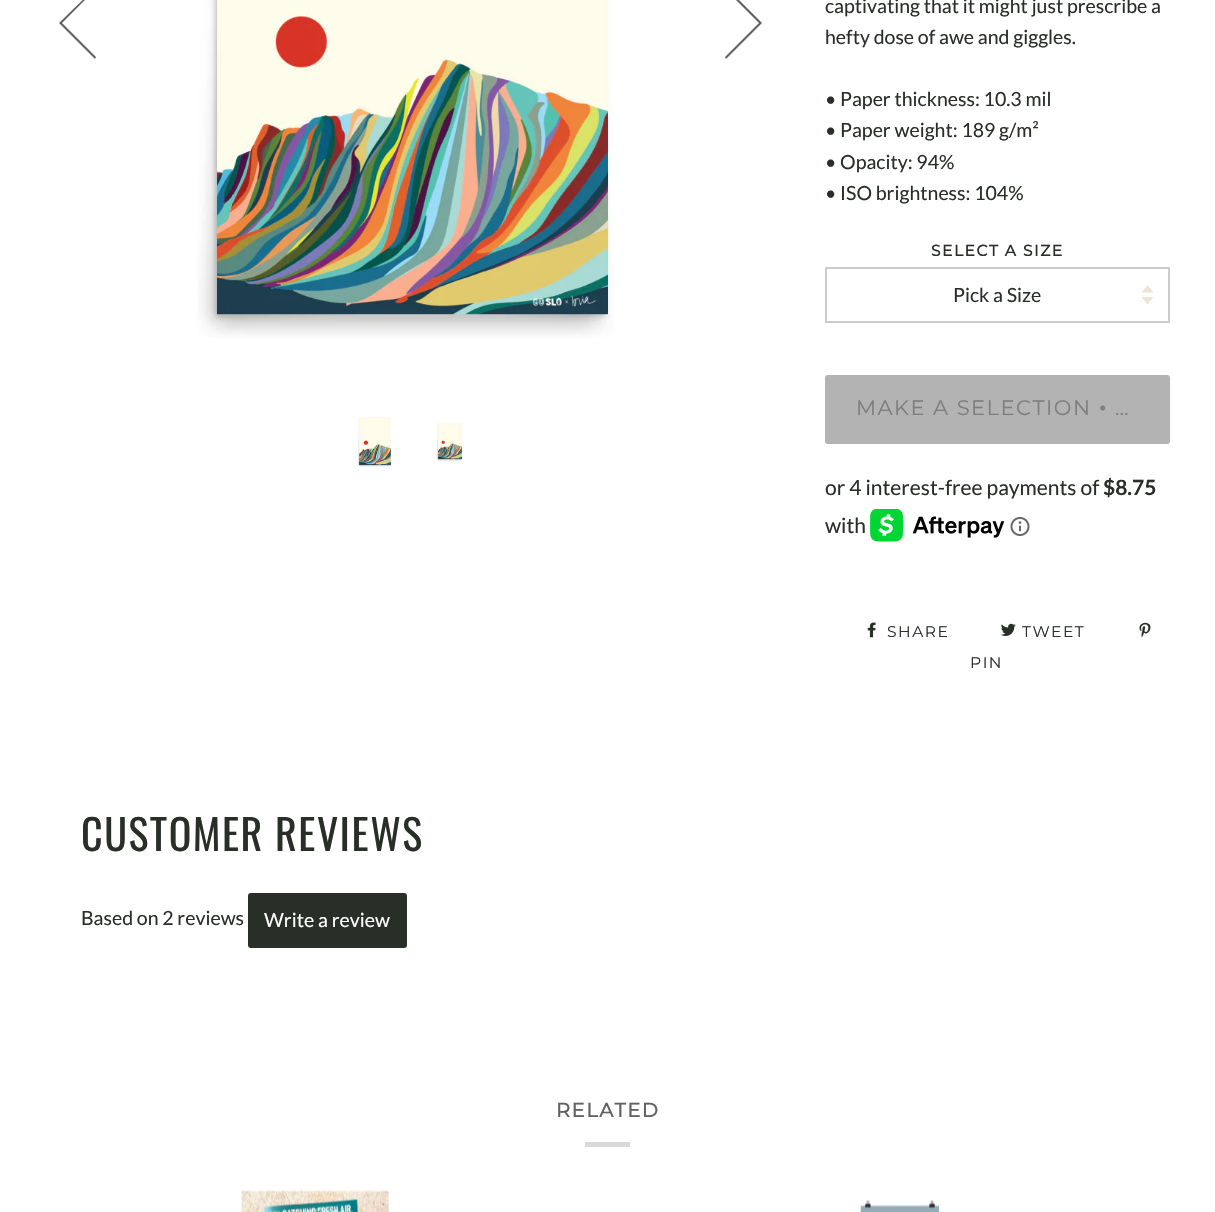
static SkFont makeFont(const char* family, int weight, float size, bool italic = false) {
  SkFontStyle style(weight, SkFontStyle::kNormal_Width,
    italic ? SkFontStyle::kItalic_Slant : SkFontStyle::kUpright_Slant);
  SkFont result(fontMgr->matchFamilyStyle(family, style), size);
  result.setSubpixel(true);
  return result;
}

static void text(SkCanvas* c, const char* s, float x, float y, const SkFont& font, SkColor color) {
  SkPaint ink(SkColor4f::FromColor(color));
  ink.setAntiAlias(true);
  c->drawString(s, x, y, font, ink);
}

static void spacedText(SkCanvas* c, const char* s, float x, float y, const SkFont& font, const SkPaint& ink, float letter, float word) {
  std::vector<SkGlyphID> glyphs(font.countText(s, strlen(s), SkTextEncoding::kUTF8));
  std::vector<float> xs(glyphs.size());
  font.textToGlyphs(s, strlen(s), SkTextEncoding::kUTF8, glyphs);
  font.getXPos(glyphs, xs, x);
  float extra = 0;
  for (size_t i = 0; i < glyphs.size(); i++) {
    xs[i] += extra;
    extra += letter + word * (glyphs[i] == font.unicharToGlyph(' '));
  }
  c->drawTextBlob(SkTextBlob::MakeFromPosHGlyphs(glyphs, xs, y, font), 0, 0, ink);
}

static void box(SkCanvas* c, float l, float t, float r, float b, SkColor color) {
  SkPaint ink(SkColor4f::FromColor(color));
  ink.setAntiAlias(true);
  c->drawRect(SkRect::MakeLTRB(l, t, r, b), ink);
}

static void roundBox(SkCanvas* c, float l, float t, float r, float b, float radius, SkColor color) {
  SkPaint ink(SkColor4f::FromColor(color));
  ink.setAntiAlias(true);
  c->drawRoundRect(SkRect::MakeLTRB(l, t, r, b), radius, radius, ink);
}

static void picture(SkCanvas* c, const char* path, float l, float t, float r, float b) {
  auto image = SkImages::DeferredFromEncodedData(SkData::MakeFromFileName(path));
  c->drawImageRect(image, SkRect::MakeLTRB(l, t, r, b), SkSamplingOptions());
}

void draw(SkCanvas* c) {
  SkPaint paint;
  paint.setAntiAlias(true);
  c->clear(0xffffffff);
  paint.setColor(0xff5f625f);
  c->drawPath(SkPathBuilder().moveTo(60, 24).lineTo(95, 59).lineTo(96, 57).lineTo(62, 23).lineTo(96, -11).lineTo(95, -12).lineTo(59, 23).close().detach(), paint);
  picture(c, "img_01.png", 197, 0, 614, 338);
  c->drawPath(SkPathBuilder().moveTo(761, 22).lineTo(727, -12).lineTo(725, -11).lineTo(759, 23).lineTo(725, 57).lineTo(726, 59).lineTo(762, 23).close().detach(), paint);
  picture(c, "img_02.png", 357, 417, 393, 468);
  picture(c, "img_03.png", 436, 422, 463, 462);
  SkFont face1 = makeFont("Lato", 400, 19.5f);
  text(c, "captivating that it might just prescribe a", 825, 13, face1, 0xff292e29);
  text(c, "hefty dose of awe and giggles.", 825, 44, face1, 0xff292e29);
  text(c, "• Paper thickness: 10.3 mil", 825, 106, face1, 0xff292e29);
  text(c, "• Paper weight: 189 g/m²", 825, 137, face1, 0xff292e29);
  text(c, "• Opacity: 94%", 825, 169, face1, 0xff292e29);
  text(c, "• ISO brightness: 104%", 825, 200, face1, 0xff292e29);
  SkFont face2 = makeFont("Montserrat", 700, 15.5f);
  paint.setColor(0xff292e29);
  spacedText(c, "SELECT A SIZE", 931, 256, face2, paint, 1.5f, 0);
  picture(c, "img_04.png", 1142, 285, 1154, 305);
  paint.setStyle(SkPaint::kStroke_Style);
  paint.setStrokeWidth(2);
  paint.setColor(0xffcccccc);
  c->drawRect(SkRect::MakeLTRB(826, 268, 1169, 322), paint);
  text(c, "Pick a Size", 953, 302, face1, 0xff292e29);
  roundBox(c, 825, 375, 1170, 444, 3, 0xffb3b3b3);
  SkFont face3 = makeFont("Montserrat", 100, 21);
  paint.setStyle(SkPaint::kFill_Style);
  paint.setColor(0xff7d7d7d);
  spacedText(c, "MAKE A SELECTION", 856, 415, face3, paint, 1.5f, 0);
  SkFont face4 = makeFont("Liberation Serif", 400, 21);
  spacedText(c, "•", 1099, 415, face4, paint, 1.5f, 0);
  spacedText(c, "…", 1115, 415, face3, paint, 1.5f, 0);
  SkFont face5 = makeFont("Lato", 400, 21);
  text(c, "or 4 interest-free payments of", 825, 495, face5, 0xff292e29);
  SkFont face6 = makeFont("Lato", 700, 21);
  text(c, "$8.75", 1103, 495, face6, 0xff292e29);
  text(c, "with", 825, 533, face5, 0xff292e29);
  picture(c, "img_05.png", 870, 509, 1005, 542);
  picture(c, "img_06.png", 1010, 517, 1030, 536);
  picture(c, "img_07.png", 867, 622, 876, 638);
  SkFont face7 = makeFont("Montserrat", 100, 15.5f);
  paint.setColor(0xff292e29);
  spacedText(c, "SHARE", 887, 637, face7, paint, 1.5f, 0);
  picture(c, "img_08.png", 1000, 623, 1016, 636);
  spacedText(c, "TWEET", 1022, 637, face7, paint, 1.5f, 0);
  picture(c, "img_09.png", 1139, 622, 1151, 638);
  spacedText(c, "PIN", 970, 668, face7, paint, 1.5f, 0);
  SkFont face8 = makeFont("Oswald", 400, 42);
  spacedText(c, "CUSTOMER REVIEWS", 81, 851, face8, paint, 1.5f, 0);
  text(c, "Based on 2 reviews", 81, 925, face1, 0xff292e29);
  roundBox(c, 248, 893, 407, 948, 3, 0xff292e29);
  text(c, "Write a review", 264, 927, face1, 0xffffffff);
  SkFont face9 = makeFont("Montserrat", 700, 19.5f);
  paint.setColor(0xff5f625f);
  spacedText(c, "RELATED", 556, 1117, face9, paint, 1.5f, 0);
  box(c, 585, 1142, 630, 1147, 0xffd9d9d9);
  picture(c, "img_10.png", 241, 1190, 389, 1212);
  picture(c, "img_11.png", 860, 1199, 940, 1212);
}
